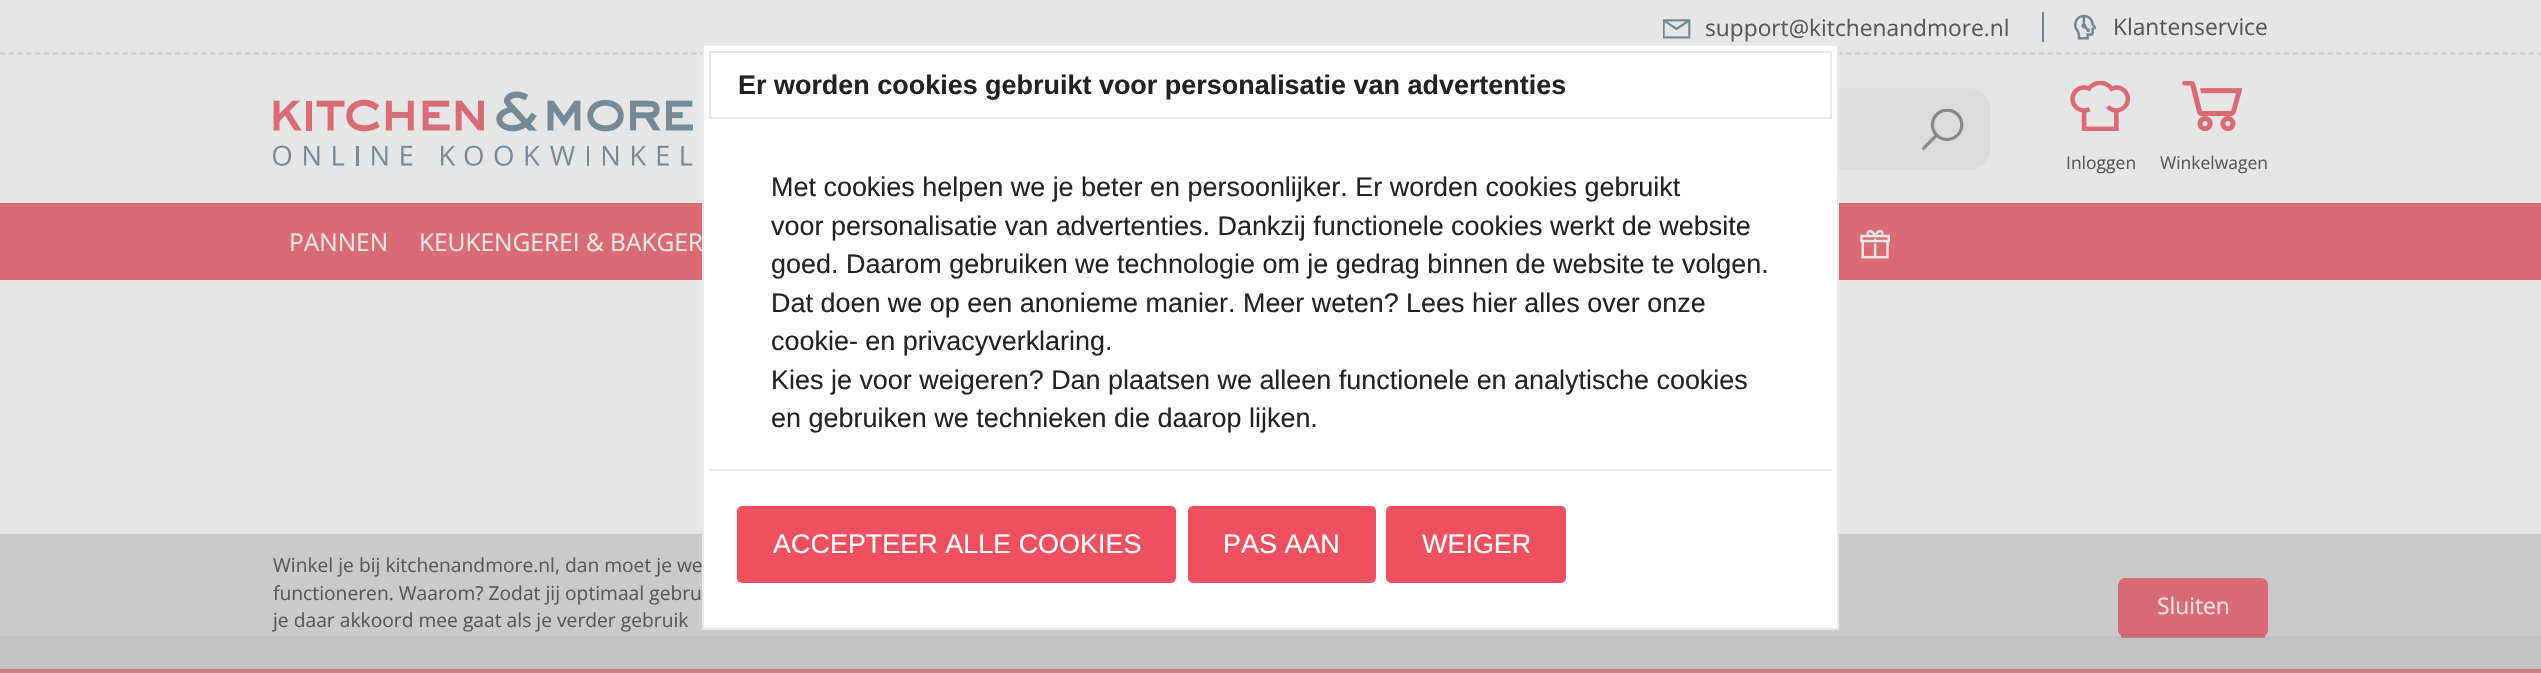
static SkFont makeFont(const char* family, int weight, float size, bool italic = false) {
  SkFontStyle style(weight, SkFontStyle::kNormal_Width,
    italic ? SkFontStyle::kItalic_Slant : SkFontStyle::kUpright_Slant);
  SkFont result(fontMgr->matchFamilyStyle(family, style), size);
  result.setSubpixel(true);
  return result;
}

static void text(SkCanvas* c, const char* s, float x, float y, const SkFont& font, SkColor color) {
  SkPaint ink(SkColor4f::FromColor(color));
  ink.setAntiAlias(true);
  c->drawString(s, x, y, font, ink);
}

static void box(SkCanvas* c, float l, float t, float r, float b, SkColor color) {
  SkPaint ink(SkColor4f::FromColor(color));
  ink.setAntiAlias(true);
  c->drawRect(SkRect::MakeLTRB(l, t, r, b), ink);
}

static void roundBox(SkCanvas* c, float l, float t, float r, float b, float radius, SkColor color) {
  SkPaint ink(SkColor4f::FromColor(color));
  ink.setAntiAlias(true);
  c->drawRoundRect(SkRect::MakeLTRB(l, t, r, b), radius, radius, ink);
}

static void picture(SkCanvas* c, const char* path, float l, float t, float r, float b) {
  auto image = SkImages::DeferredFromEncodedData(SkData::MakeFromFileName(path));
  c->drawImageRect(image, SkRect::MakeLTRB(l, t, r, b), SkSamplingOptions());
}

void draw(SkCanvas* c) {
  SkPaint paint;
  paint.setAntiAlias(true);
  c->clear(0xffe6e6e6);
  paint.setStyle(SkPaint::kStroke_Style);
  paint.setStrokeWidth(1.8f);
  paint.setColor(0xffcecece);
  paint.setPathEffect(SkDashPathEffect::Make({{5.25f, 3.5f}}, 0));
  c->drawPath(SkPathBuilder().moveTo(0, 53.5f).lineTo(2541, 53.5f).detach(), paint);
  paint.setPathEffect(nullptr);
  picture(c, "img_01.png", 1663, 19, 1691, 39);
  SkFont face1 = makeFont("Open Sans", 400, 22.75f);
  text(c, "support@kitchenandmore.nl", 1705, 36, face1, 0xff575757);
  box(c, 2042, 12, 2044, 42, 0xff728793);
  picture(c, "img_02.png", 2074, 14, 2097, 40);
  text(c, "Klantenservice", 2113, 35, face1, 0xff575757);
  picture(c, "img_03.png", 273, 91, 693, 166);
  roundBox(c, 1482, 88, 1990, 170, 21, 0xffdcdcdc);
  picture(c, "img_04.png", 1922, 109, 1964, 151);
  picture(c, "img_05.png", 2070, 81, 2131, 131);
  SkFont face2 = makeFont("Open Sans", 400, 17.5f);
  text(c, "Inloggen", 2066, 169, face2, 0xff575757);
  picture(c, "img_06.png", 2182, 81, 2242, 131);
  text(c, "Winkelwagen", 2160, 169, face2, 0xff575757);
  box(c, 0, 203, 2541, 280, 0xffda6b76);
  SkFont face3 = makeFont("Open Sans", 400, 24.5f);
  text(c, "PANNEN", 289, 251, face3, 0xffe6e6e6);
  text(c, "KEUKENGEREI & BAKGER", 419, 251, face3, 0xffe6e6e6);
  picture(c, "img_07.png", 1860, 229, 1890, 259);
  box(c, 0, 534, 2541, 669, 0xffcacaca);
  paint.setStyle(SkPaint::kFill_Style);
  paint.setColor(0xffffffff);
  c->drawRect(SkRect::MakeLTRB(703, 45, 1838, 629), paint);
  paint.setStyle(SkPaint::kStroke_Style);
  paint.setStrokeWidth(2);
  paint.setColor(0xffe8e8e8);
  c->drawRect(SkRect::MakeLTRB(703, 45, 1838, 629), paint);
  c->drawRect(SkRect::MakeLTRB(710, 52, 1831, 118), paint);
  SkFont face4 = makeFont("Liberation Sans", 700, 26.95f);
  text(c, "Er worden cookies gebruikt voor personalisatie van advertenties", 738, 94, face4, 0xff222222);
  SkFont face5 = makeFont("Liberation Sans", 400, 26.95f);
  text(c, "Met cookies helpen we je beter en persoonlijker. Er worden cookies gebruikt", 771, 196, face5, 0xff222222);
  text(c, "voor personalisatie van advertenties. Dankzij functionele cookies werkt de website", 771, 235, face5, 0xff222222);
  text(c, "goed. Daarom gebruiken we technologie om je gedrag binnen de website te volgen.", 771, 273, face5, 0xff222222);
  text(c, "Dat doen we op een anonieme manier. Meer weten?", 771, 312, face5, 0xff222222);
  text(c, "Lees hier alles over onze", 1406, 312, face5, 0xff222222);
  text(c, "cookie- en privacyverklaring.", 771, 350, face5, 0xff222222);
  text(c, "Kies je voor weigeren? Dan plaatsen we alleen functionele en analytische cookies", 771, 389, face5, 0xff222222);
  text(c, "en gebruiken we technieken die daarop lijken.", 771, 427, face5, 0xff222222);
  box(c, 709, 469, 1832, 471, 0xffe8e8e8);
  roundBox(c, 737, 506, 1176, 583, 5, 0xffef5060);
  text(c, "ACCEPTEER ALLE COOKIES", 773, 553, face5, 0xffffffff);
  roundBox(c, 1188, 506, 1376, 583, 5, 0xffef5060);
  text(c, "PAS AAN", 1223, 553, face5, 0xffffffff);
  roundBox(c, 1386, 506, 1566, 583, 5, 0xffef5060);
  text(c, "WEIGER", 1422, 553, face5, 0xffffffff);
  box(c, 0, 669, 2541, 673, 0xffda6b76);
  SkFont face6 = makeFont("Open Sans", 400, 19.25f);
  text(c, "Winkel je bij kitchenandmore.nl, dan moet je we", 273, 572, face6, 0xff575757);
  text(c, "functioneren. Waarom? Zodat jij optimaal gebru", 273, 600, face6, 0xff575757);
  text(c, "je daar akkoord mee gaat als je verder gebruik", 273, 627, face6, 0xff575757);
  roundBox(c, 2118, 578, 2268, 637, 7, 0xffda6b76);
  box(c, 2121, 634, 2265, 638, 0xffc5646e);
  text(c, "Sluiten", 2157, 614, face1, 0xffe6e6e6);
  box(c, 0, 636, 2541, 673, 0x4dababab);
}
